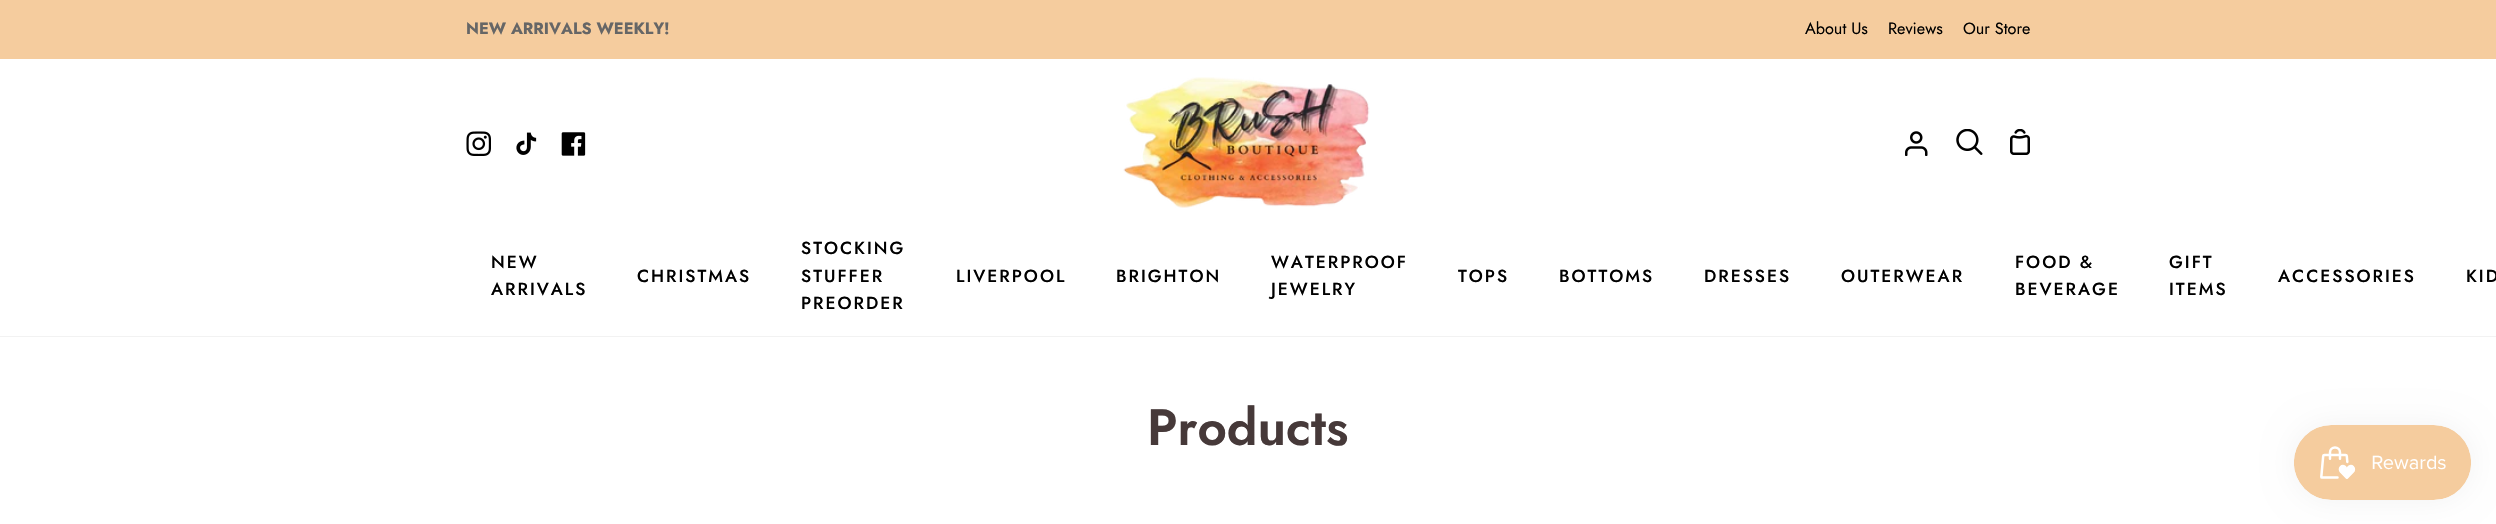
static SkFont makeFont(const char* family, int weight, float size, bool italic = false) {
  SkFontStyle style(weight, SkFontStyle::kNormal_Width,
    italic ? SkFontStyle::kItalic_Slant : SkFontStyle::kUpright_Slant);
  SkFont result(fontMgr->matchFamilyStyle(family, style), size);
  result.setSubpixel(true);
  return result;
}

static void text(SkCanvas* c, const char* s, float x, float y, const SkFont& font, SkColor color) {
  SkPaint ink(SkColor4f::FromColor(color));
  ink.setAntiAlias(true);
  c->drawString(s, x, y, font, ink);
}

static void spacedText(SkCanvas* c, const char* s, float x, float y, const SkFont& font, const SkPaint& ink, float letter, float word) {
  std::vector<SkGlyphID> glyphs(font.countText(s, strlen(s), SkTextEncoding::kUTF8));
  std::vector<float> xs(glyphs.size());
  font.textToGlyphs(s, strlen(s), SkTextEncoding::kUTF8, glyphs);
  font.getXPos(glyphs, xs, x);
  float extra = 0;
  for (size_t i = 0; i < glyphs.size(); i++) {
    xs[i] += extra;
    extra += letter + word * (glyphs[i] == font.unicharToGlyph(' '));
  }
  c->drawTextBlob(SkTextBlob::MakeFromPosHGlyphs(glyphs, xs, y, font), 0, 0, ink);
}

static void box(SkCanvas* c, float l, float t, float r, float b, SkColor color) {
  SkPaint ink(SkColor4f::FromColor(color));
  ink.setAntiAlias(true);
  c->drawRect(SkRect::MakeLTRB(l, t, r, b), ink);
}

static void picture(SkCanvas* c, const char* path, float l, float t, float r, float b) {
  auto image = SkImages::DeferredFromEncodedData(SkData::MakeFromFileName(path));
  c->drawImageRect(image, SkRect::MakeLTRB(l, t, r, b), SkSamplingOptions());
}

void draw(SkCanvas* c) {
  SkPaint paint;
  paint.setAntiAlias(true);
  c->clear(0xffffffff);
  box(c, 0, 336, 2496, 337, 0xfff2f2f2);
  box(c, 0, 0, 2496, 59, 0xfff5cc9e);
  SkFont face1 = makeFont("Jost", 700, 16.25f);
  text(c, "NEW ARRIVALS WEEKLY!", 466, 34, face1, 0xff666666);
  SkFont face2 = makeFont("Jost", 400, 16.25f);
  text(c, "About Us", 1805, 34, face2, 0xff000000);
  text(c, "Reviews", 1888, 34, face2, 0xff000000);
  text(c, "Our Store", 1963, 34, face2, 0xff000000);
  picture(c, "img_01.png", 466, 131, 491, 156);
  picture(c, "img_02.png", 516, 132, 537, 155);
  picture(c, "img_03.png", 561, 132, 586, 156);
  picture(c, "img_04.png", 1123, 77, 1370, 208);
  picture(c, "img_05.png", 1905, 131, 1928, 156);
  picture(c, "img_06.png", 1956, 129, 1983, 155);
  picture(c, "img_07.png", 2010, 129, 2030, 155);
  SkFont face3 = makeFont("Jost", 500, 17.5f);
  paint.setColor(0xff000000);
  spacedText(c, "NEW", 491, 268, face3, paint, 2, 0);
  spacedText(c, "ARRIVALS", 491, 295, face3, paint, 2, 0);
  spacedText(c, "CHRISTMAS", 637, 282, face3, paint, 2, 0);
  spacedText(c, "STOCKING", 801, 254, face3, paint, 2, 0);
  spacedText(c, "STUFFER", 801, 282, face3, paint, 2, 0);
  spacedText(c, "PREORDER", 801, 309, face3, paint, 2, 0);
  spacedText(c, "LIVERPOOL", 956, 282, face3, paint, 2, 0);
  spacedText(c, "BRIGHTON", 1116, 282, face3, paint, 2, 0);
  spacedText(c, "WATERPROOF", 1271, 268, face3, paint, 2, 0);
  spacedText(c, "JEWELRY", 1271, 295, face3, paint, 2, 0);
  spacedText(c, "TOPS", 1458, 282, face3, paint, 2, 0);
  spacedText(c, "BOTTOMS", 1559, 282, face3, paint, 2, 0);
  spacedText(c, "DRESSES", 1704, 282, face3, paint, 2, 0);
  spacedText(c, "OUTERWEAR", 1841, 282, face3, paint, 2, 0);
  spacedText(c, "FOOD &", 2015, 268, face3, paint, 2, 0);
  spacedText(c, "BEVERAGE", 2015, 295, face3, paint, 2, 0);
  spacedText(c, "GIFT", 2169, 268, face3, paint, 2, 0);
  spacedText(c, "ITEMS", 2169, 295, face3, paint, 2, 0);
  spacedText(c, "ACCESSORIES", 2278, 282, face3, paint, 2, 0);
  spacedText(c, "KID", 2466, 282, face3, paint, 2, 0);
  SkFont face4 = makeFont("Jost", 600, 51);
  text(c, "Products", 1147, 445, face4, 0xff463939);
  paint.setColor(0x0d000000);
  paint.setMaskFilter(SkMaskFilter::MakeBlur(kNormal_SkBlurStyle, 15.5f));
  c->drawRoundRect(SkRect::MakeLTRB(2294, 425, 2471, 500), 37.5f, 37.5f, paint);
  paint.setMaskFilter(nullptr);
  picture(c, "img_08.png", 2294, 425, 2471, 500);
}
